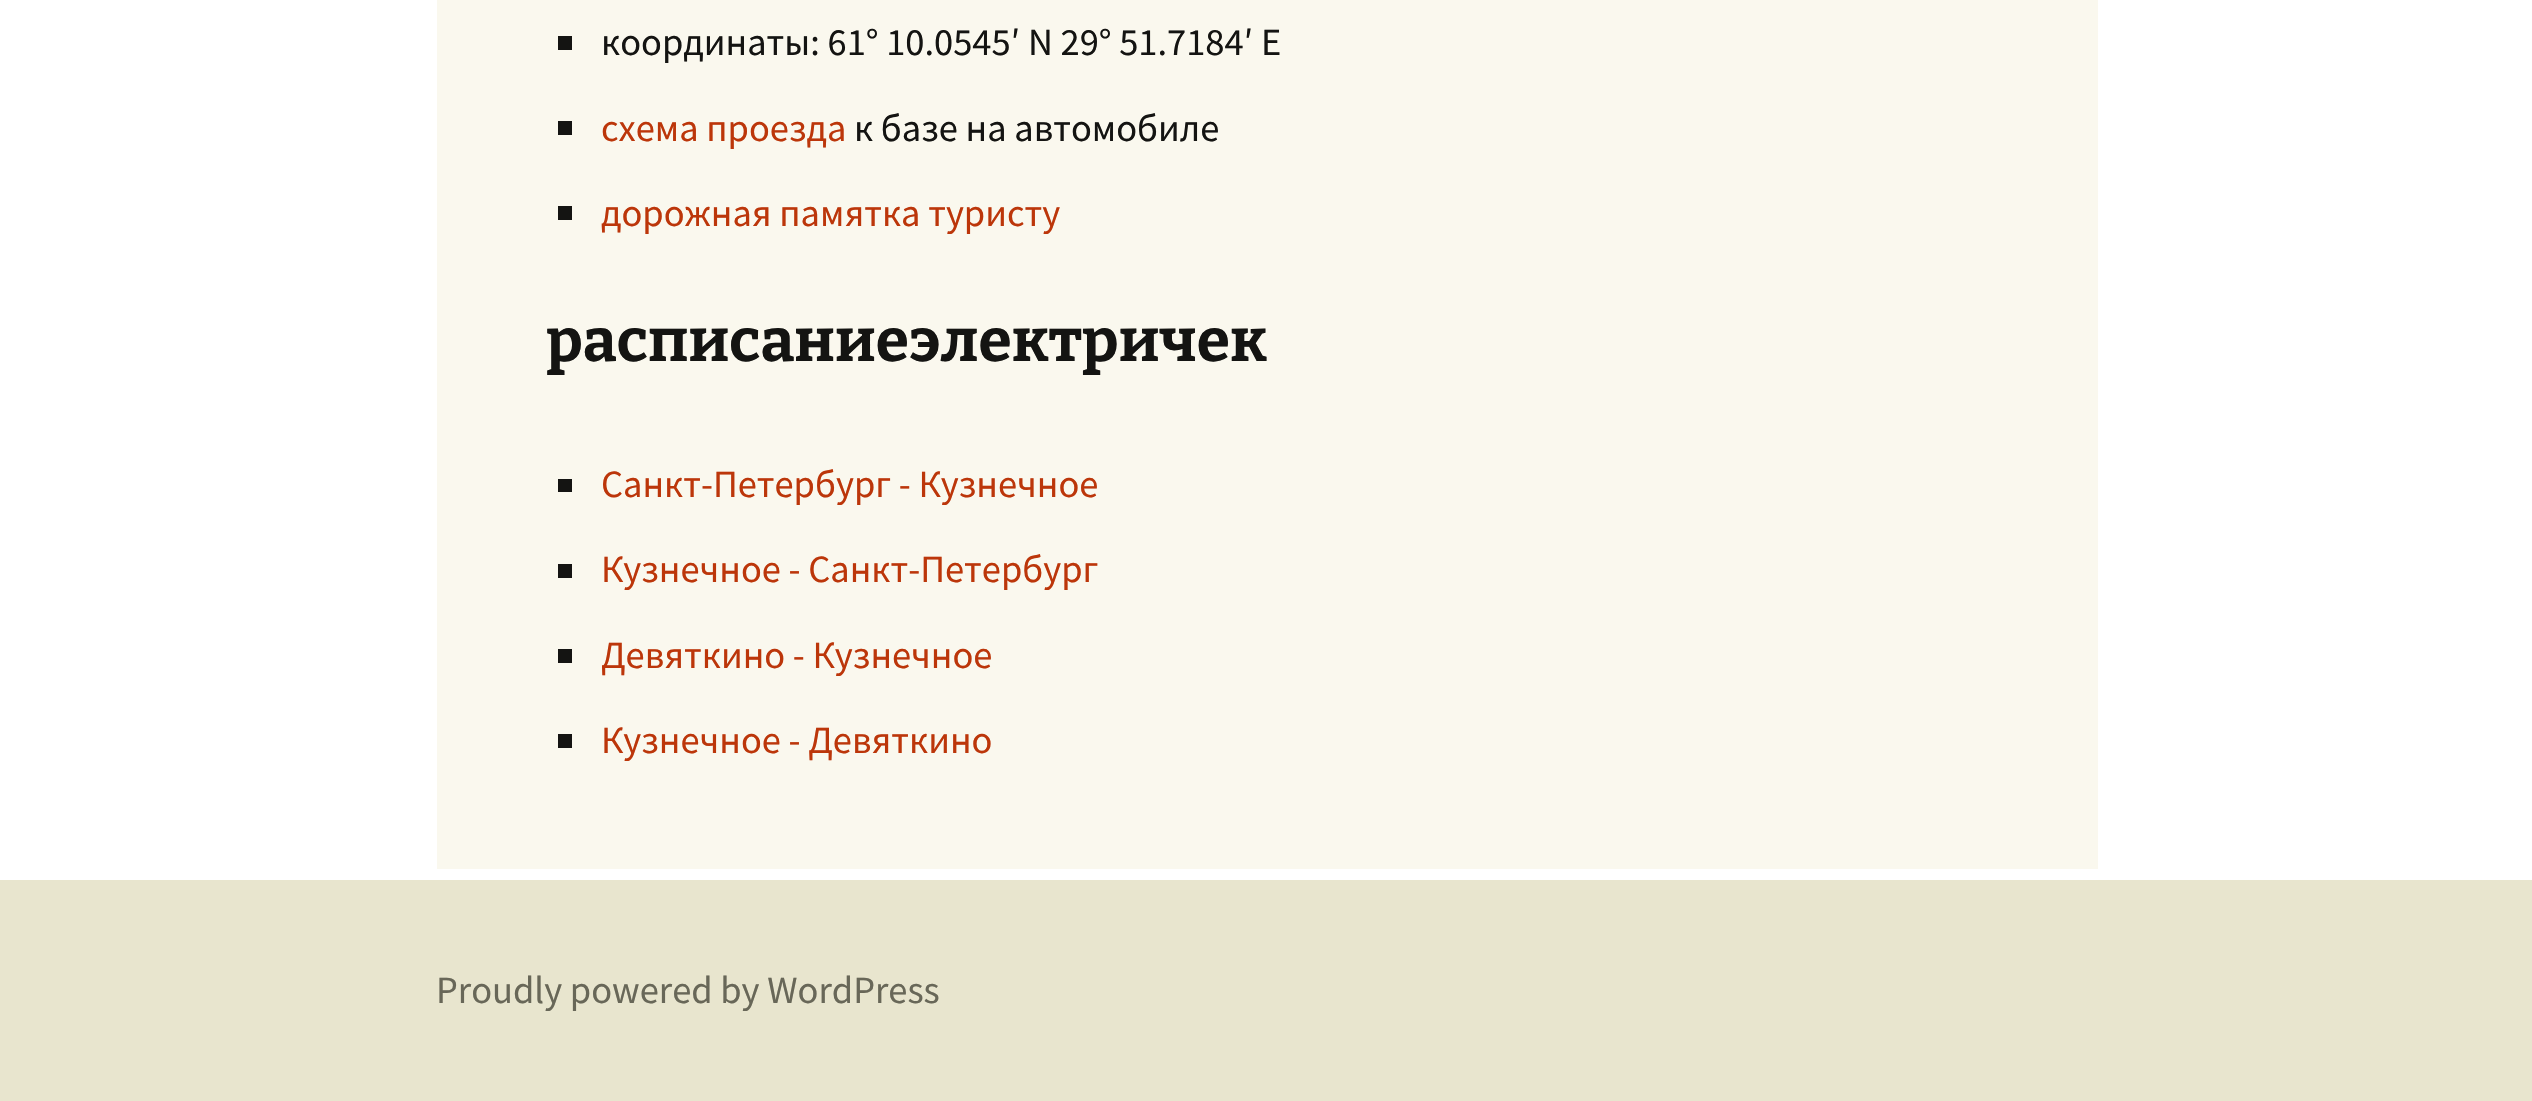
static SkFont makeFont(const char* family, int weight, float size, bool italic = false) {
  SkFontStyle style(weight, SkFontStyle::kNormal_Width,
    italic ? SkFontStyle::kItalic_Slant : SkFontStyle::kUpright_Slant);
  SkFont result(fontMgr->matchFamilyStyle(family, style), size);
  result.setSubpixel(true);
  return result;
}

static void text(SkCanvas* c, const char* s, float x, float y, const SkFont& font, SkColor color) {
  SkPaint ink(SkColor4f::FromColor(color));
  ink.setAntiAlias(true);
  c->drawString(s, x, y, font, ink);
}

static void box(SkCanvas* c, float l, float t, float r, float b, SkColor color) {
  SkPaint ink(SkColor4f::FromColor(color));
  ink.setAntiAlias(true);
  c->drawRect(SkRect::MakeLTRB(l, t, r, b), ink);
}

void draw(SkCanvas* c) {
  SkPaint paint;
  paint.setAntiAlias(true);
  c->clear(0xffffffff);
  box(c, 437, 0, 2098, 869, 0xfffaf8ee);
  box(c, 558, 36, 572, 50, 0xff141412);
  SkFont face1 = makeFont("Source Sans Pro", 400, 38.5f);
  text(c, "координаты: 61° 10.0545′ N 29° 51.7184′ E", 601, 55, face1, 0xff141412);
  box(c, 558, 121, 572, 135, 0xff141412);
  text(c, "схема проезда", 601, 141, face1, 0xffbc360a);
  text(c, "к базе на автомобиле", 854, 141, face1, 0xff141412);
  box(c, 558, 206, 572, 220, 0xff141412);
  text(c, "дорожная памятка туристу", 601, 226, face1, 0xffbc360a);
  SkFont face2 = makeFont("Bitter", 100, 60.5f);
  text(c, "расписание электричек", 546, 361, face2, 0xff141412);
  box(c, 558, 479, 572, 492, 0xff141412);
  text(c, "Санкт-Петербург - Кузнечное", 601, 497, face1, 0xffbc360a);
  box(c, 558, 564, 572, 578, 0xff141412);
  text(c, "Кузнечное - Санкт-Петербург", 601, 582, face1, 0xffbc360a);
  box(c, 558, 649, 572, 663, 0xff141412);
  text(c, "Девяткино - Кузнечное", 601, 668, face1, 0xffbc360a);
  box(c, 558, 734, 572, 748, 0xff141412);
  text(c, "Кузнечное - Девяткино", 601, 753, face1, 0xffbc360a);
  box(c, 0, 880, 2532, 1101, 0xffe8e5ce);
  text(c, "Proudly powered by WordPress", 436, 1003, face1, 0xff686758);
}
